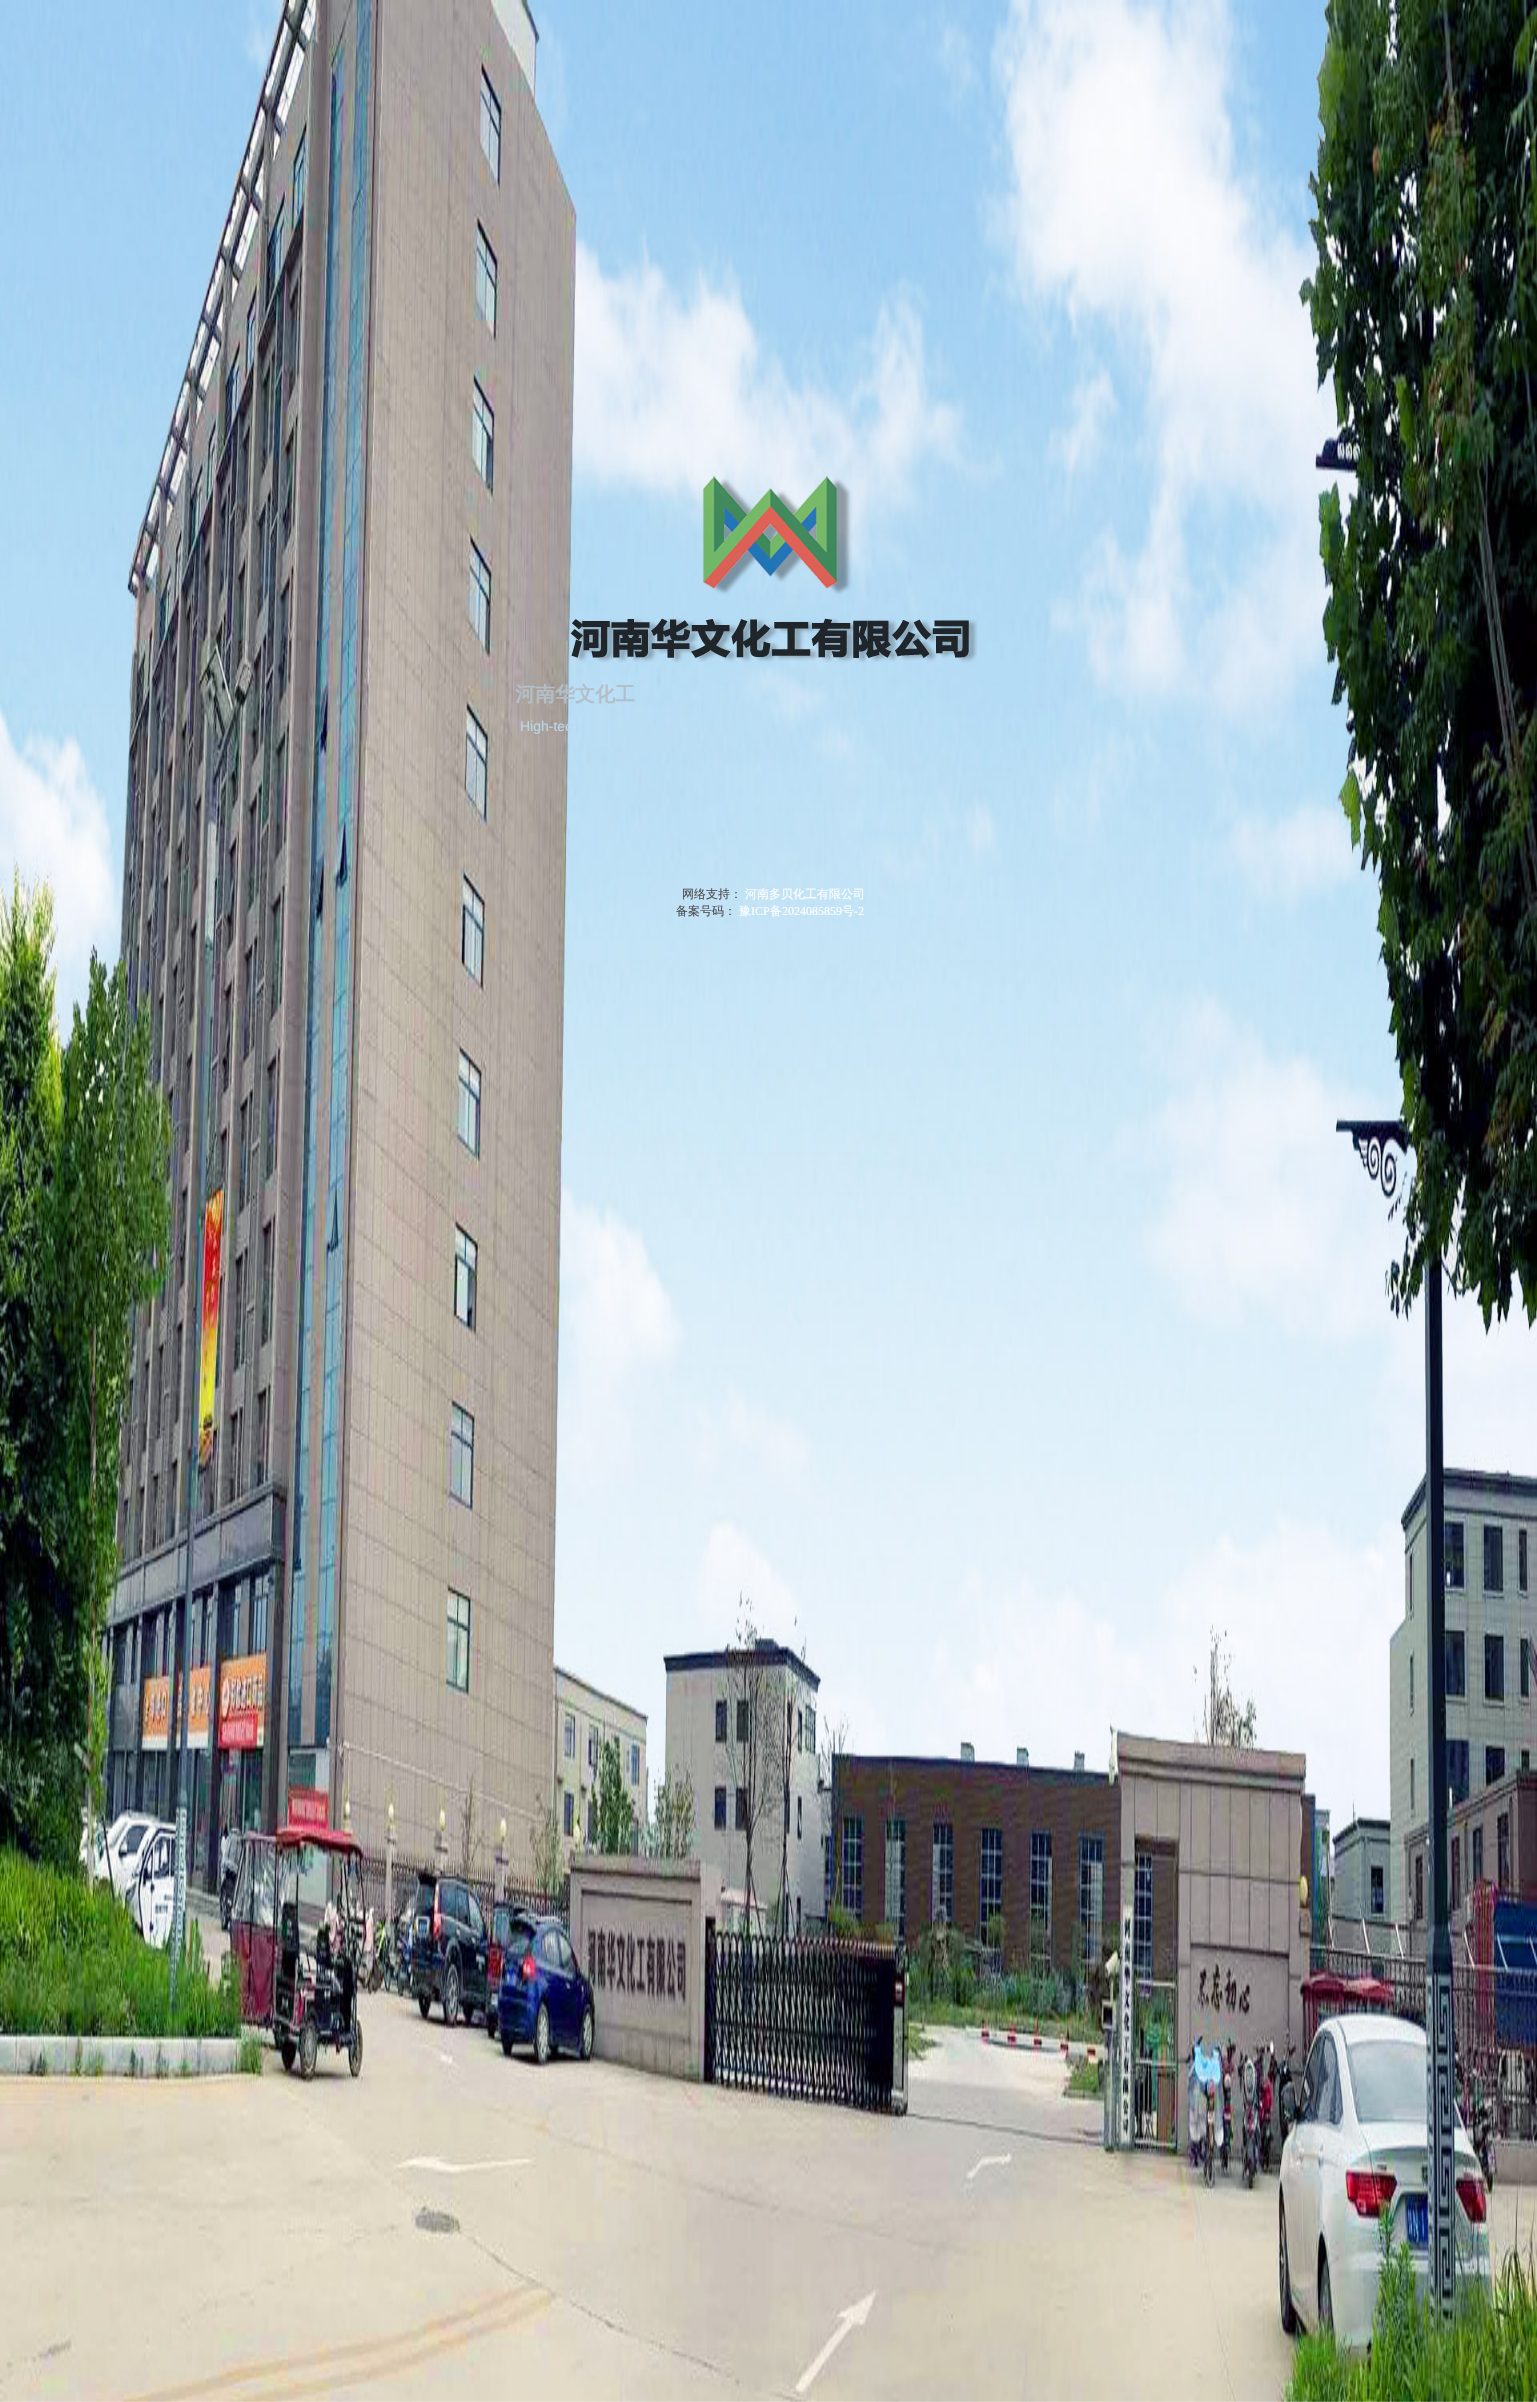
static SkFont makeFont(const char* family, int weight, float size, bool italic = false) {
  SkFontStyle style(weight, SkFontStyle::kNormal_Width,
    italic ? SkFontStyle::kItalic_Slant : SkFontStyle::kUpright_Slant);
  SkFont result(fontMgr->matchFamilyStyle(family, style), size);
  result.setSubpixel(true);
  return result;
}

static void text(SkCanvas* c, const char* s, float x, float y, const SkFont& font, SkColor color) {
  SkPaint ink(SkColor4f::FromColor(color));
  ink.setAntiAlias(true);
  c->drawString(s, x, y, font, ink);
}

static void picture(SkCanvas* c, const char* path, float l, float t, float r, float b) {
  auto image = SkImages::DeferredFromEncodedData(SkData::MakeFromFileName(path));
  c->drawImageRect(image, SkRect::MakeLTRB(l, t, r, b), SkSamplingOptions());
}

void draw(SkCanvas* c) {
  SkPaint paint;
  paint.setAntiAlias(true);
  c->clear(0xffffffff);
  picture(c, "img_01.png", 0, 0, 1537, 2402);
  picture(c, "img_02.png", 570, 476, 978, 663);
  SkFont face1 = makeFont("WenQuanYi Zen Hei", 700, 20);
  text(c, "河南华文化工", 515, 701, face1, 0xffb1bfc8);
  SkFont face2 = makeFont("Liberation Sans", 400, 14);
  text(c, "High-tec", 520, 731, face2, 0xffb8d8ec);
  SkFont face3 = makeFont("WenQuanYi Zen Hei", 500, 12);
  text(c, "网络支持：", 682, 898, face3, 0xff4c4c4c);
  text(c, "河南多贝化工有限公司", 745, 898, face3, 0xffffffff);
  text(c, "备案号码：", 676, 915, face3, 0xff4c4c4c);
  text(c, "豫", 739, 915, face3, 0xffffffff);
  SkFont face4 = makeFont("Liberation Serif", 400, 12);
  text(c, "ICP", 751, 915, face4, 0xffffffff);
  text(c, "备", 770, 915, face3, 0xffffffff);
  text(c, "2024085859", 782, 915, face4, 0xffffffff);
  text(c, "号", 842, 915, face3, 0xffffffff);
  text(c, "-2", 854, 915, face4, 0xffffffff);
}
